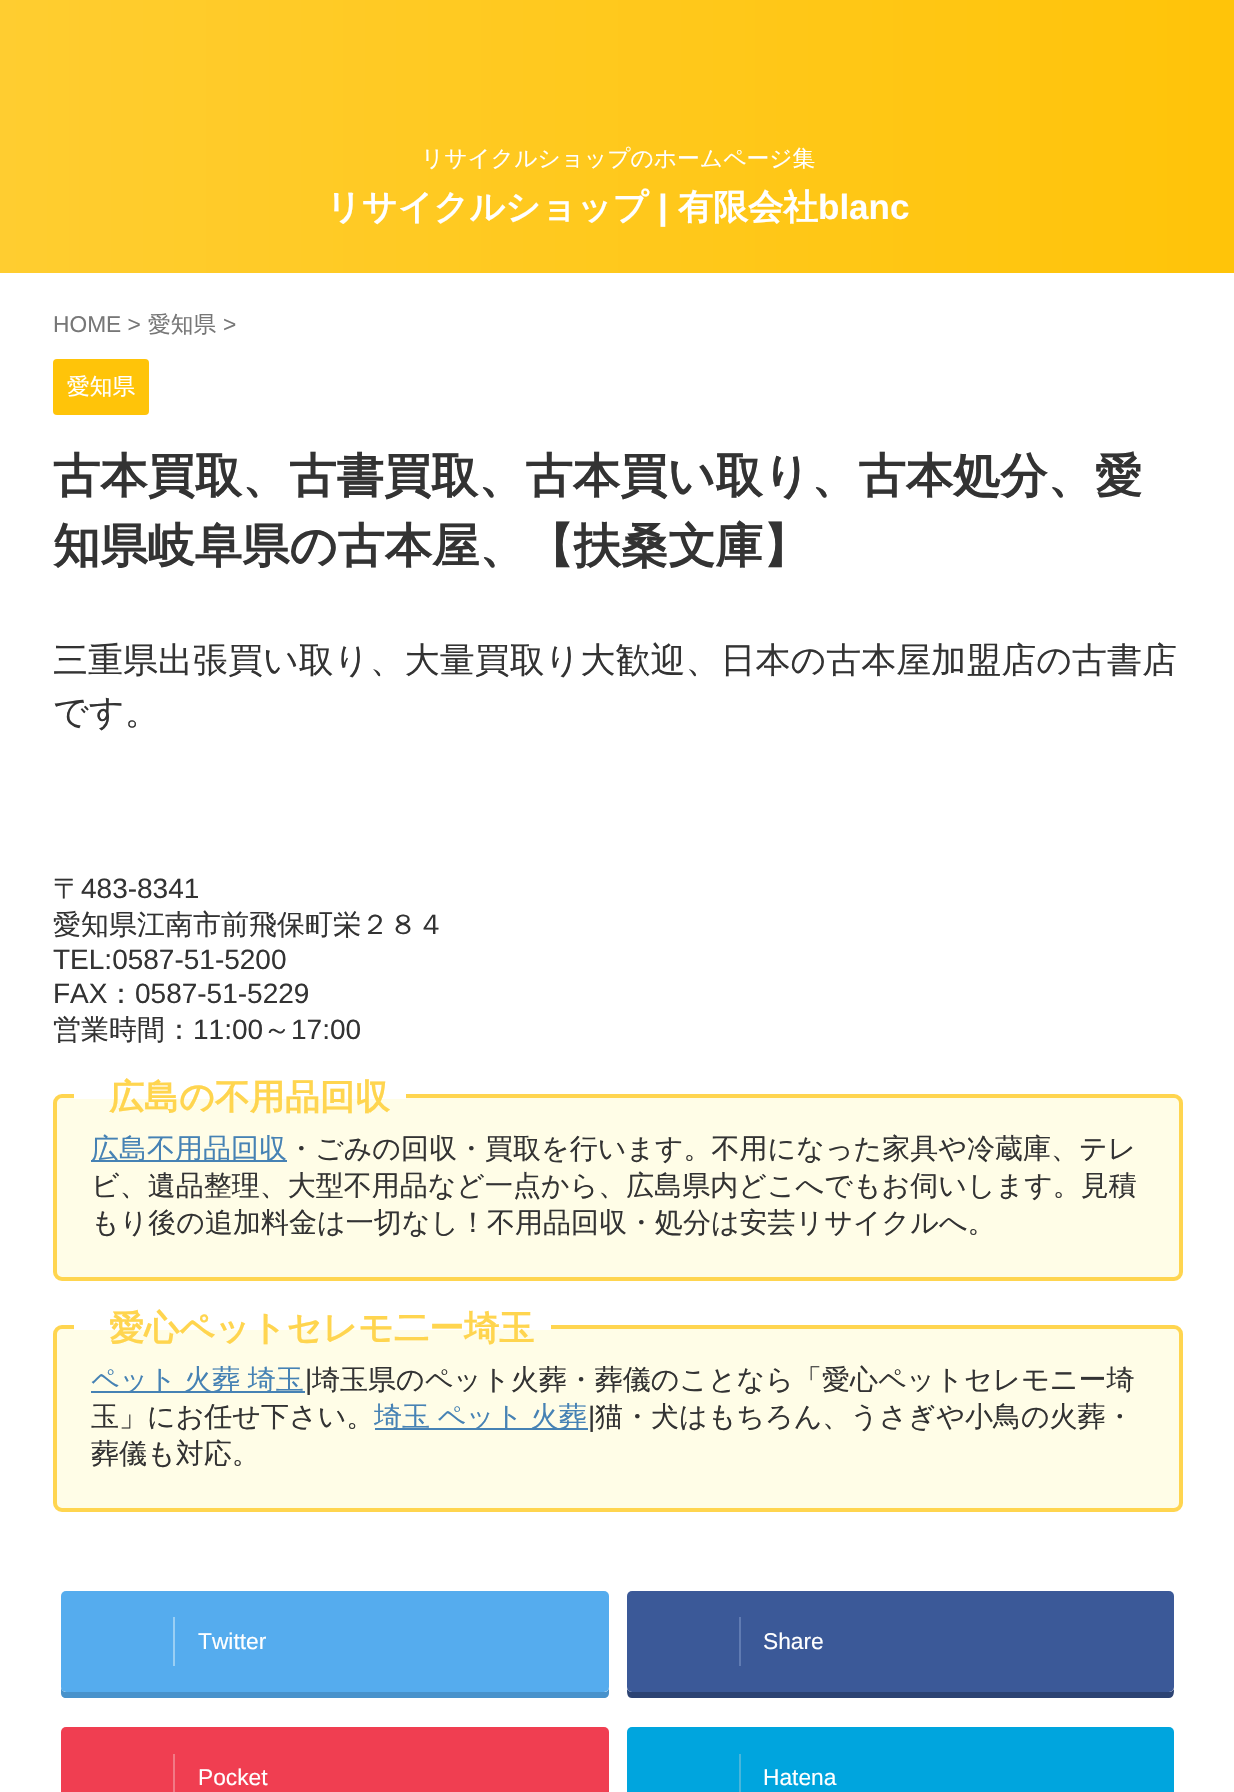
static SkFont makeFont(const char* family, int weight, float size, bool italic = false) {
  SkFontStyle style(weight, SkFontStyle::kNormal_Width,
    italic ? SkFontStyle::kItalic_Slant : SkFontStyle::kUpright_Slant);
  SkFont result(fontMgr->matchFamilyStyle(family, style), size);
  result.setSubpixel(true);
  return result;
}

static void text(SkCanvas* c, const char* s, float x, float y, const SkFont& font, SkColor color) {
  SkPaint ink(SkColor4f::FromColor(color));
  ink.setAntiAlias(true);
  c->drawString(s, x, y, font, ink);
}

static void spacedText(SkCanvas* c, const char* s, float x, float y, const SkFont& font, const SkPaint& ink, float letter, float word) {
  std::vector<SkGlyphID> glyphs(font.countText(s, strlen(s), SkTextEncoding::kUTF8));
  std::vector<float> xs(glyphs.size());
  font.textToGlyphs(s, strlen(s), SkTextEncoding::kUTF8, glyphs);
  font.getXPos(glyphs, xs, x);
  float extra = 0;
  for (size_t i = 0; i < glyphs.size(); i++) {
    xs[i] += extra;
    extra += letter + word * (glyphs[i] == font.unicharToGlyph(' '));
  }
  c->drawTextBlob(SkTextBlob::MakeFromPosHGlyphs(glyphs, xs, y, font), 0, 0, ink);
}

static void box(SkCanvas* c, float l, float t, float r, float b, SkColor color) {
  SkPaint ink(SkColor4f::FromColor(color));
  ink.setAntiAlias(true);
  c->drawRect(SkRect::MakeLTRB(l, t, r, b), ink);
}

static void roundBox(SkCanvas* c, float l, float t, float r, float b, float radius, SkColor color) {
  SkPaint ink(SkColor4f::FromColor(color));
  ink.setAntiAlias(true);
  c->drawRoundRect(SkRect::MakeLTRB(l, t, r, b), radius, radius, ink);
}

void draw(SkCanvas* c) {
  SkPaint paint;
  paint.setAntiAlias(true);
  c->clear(0xffffffff);
  {
    const SkColor colors[] = {0xffffc409, 0xffffcd30};
    const float stops[] = {0, 1};
    const SkPoint ends[] = {{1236, 137}, {0, 136}};
    paint.setShader(SkGradientShader::MakeLinear(ends, colors, stops, 2, SkTileMode::kClamp));
    paint.setAlpha(255);
  }
  c->drawRect(SkRect::MakeLTRB(0, 0, 1234, 273), paint);
  SkFont face1 = makeFont("WenQuanYi Zen Hei", 500, 22.75f);
  text(c, "リサイクルショップのホームページ集", 421, 166, face1, 0xffffffff);
  SkFont face2 = makeFont("WenQuanYi Zen Hei", 700, 35);
  text(c, "リサイクルショップ", 326, 219, face2, 0xffffffff);
  SkFont face3 = makeFont("Liberation Sans", 700, 35);
  text(c, "|", 658, 219, face3, 0xffffffff);
  text(c, "有限会社", 678, 219, face2, 0xffffffff);
  text(c, "blanc", 818, 219, face3, 0xffffffff);
  SkFont face4 = makeFont("Liberation Sans", 400, 22.75f);
  text(c, "HOME >", 53, 332, face4, 0xff777777);
  text(c, "愛知県", 148, 332, face1, 0xff777777);
  text(c, ">", 223, 332, face4, 0xff777777);
  roundBox(c, 53, 359, 149, 415, 4, 0xffffc409);
  text(c, "愛知県", 67, 394, face1, 0xffffffff);
  SkFont face5 = makeFont("WenQuanYi Zen Hei", 700, 47.25f);
  text(c, "古本買取、古書買取、古本買い取り、古本処分、愛", 53, 492, face5, 0xff333333);
  text(c, "知県岐阜県の古本屋、【扶桑文庫】", 53, 562, face5, 0xff333333);
  SkFont face6 = makeFont("WenQuanYi Zen Hei", 500, 35);
  text(c, "三重県出張買い取り、大量買取り大歓迎、日本の古本屋加盟店の古書店", 53, 672, face6, 0xff333333);
  text(c, "です。", 53, 724, face6, 0xff333333);
  SkFont face7 = makeFont("WenQuanYi Zen Hei", 500, 28);
  text(c, "〒", 53, 898, face7, 0xff333333);
  SkFont face8 = makeFont("Liberation Sans", 400, 28);
  text(c, "483-8341", 81, 898, face8, 0xff333333);
  text(c, "愛知県江南市前飛保町栄２８４", 53, 934, face7, 0xff333333);
  text(c, "TEL:0587-51-5200", 53, 969, face8, 0xff333333);
  text(c, "FAX", 53, 1003, face8, 0xff333333);
  text(c, "：", 107, 1003, face7, 0xff333333);
  text(c, "0587-51-5229", 135, 1003, face8, 0xff333333);
  text(c, "営業時間：", 53, 1039, face7, 0xff333333);
  text(c, "11:00", 193, 1039, face8, 0xff333333);
  text(c, "～", 263, 1039, face7, 0xff333333);
  text(c, "17:00", 291, 1039, face8, 0xff333333);
  paint.setShader(nullptr);
  paint.setColor(0xfffffde7);
  c->drawRoundRect(SkRect::MakeLTRB(55, 1096, 1181, 1279), 7, 7, paint);
  paint.setStyle(SkPaint::kStroke_Style);
  paint.setStrokeWidth(4);
  paint.setColor(0xffffd54f);
  c->drawRoundRect(SkRect::MakeLTRB(55, 1096, 1181, 1279), 7, 7, paint);
  box(c, 74, 1094, 406, 1099, 0xffffffff);
  text(c, "広島の不用品回収", 109, 1109, face2, 0xffffd54f);
  box(c, 91, 1160, 287, 1162, 0xff4682b4);
  text(c, "広島不用品回収", 91, 1158, face7, 0xff4682b4);
  text(c, "・ごみの回収・買取を行います。不用になった家具や冷蔵庫、テレ", 287, 1158, face7, 0xff333333);
  text(c, "ビ、遺品整理、大型不用品など一点から、広島県内どこへでもお伺いします。見積", 91, 1195, face7, 0xff333333);
  text(c, "もり後の追加料金は一切なし！不用品回収・処分は安芸リサイクルへ。", 91, 1232, face7, 0xff333333);
  paint.setStyle(SkPaint::kFill_Style);
  paint.setColor(0xfffffde7);
  c->drawRoundRect(SkRect::MakeLTRB(55, 1327, 1181, 1510), 7, 7, paint);
  paint.setStyle(SkPaint::kStroke_Style);
  paint.setColor(0xffffd54f);
  c->drawRoundRect(SkRect::MakeLTRB(55, 1327, 1181, 1510), 7, 7, paint);
  box(c, 74, 1325, 551, 1330, 0xffffffff);
  text(c, "愛心ペットセレモ二ー埼玉", 109, 1340, face2, 0xffffd54f);
  box(c, 91, 1391, 305, 1393, 0xff4682b4);
  paint.setStyle(SkPaint::kFill_Style);
  paint.setColor(0xff4682b4);
  spacedText(c, "ペット 火葬 埼玉", 91, 1389, face7, paint, 0, -1);
  text(c, "|", 305, 1389, face8, 0xff333333);
  text(c, "埼玉県のペット火葬・葬儀のことなら「愛心ペットセレモニー埼", 312, 1389, face7, 0xff333333);
  text(c, "玉」にお任せ下さい。", 91, 1426, face7, 0xff333333);
  box(c, 375, 1428, 588, 1430, 0xff4682b4);
  spacedText(c, "埼玉 ペット 火葬", 374, 1426, face7, paint, 0, -1);
  text(c, "|", 588, 1426, face8, 0xff333333);
  text(c, "猫・犬はもちろん、うさぎや小鳥の火葬・", 595, 1426, face7, 0xff333333);
  text(c, "葬儀も対応。", 91, 1463, face7, 0xff333333);
  paint.setColor(0xff4892cb);
  c->drawPath(SkPathBuilder().moveTo(61, 1599).lineTo(61, 1693).cubicTo(61, 1696, 63, 1698, 66, 1698).lineTo(604, 1698).cubicTo(607, 1698, 609, 1696, 609, 1693).lineTo(609, 1687).cubicTo(609, 1690, 607, 1692, 604, 1692).lineTo(66, 1692).cubicTo(64, 1692, 61, 1690, 61, 1687).close().detach(), paint);
  roundBox(c, 61, 1591, 609, 1692, 5, 0xff55acee);
  box(c, 173, 1617, 175, 1666, 0xff9acff4);
  text(c, "Twitter", 198, 1649, face4, 0xffffffff);
  paint.setColor(0xff2c4373);
  c->drawPath(SkPathBuilder().moveTo(627, 1689).cubicTo(627, 1693, 627, 1698, 632, 1698).lineTo(1169, 1698).cubicTo(1174, 1698, 1174, 1692, 1174, 1689).cubicTo(1173, 1691, 1171, 1692, 1169, 1692).lineTo(632, 1692).cubicTo(630, 1692, 628, 1691, 627, 1689).close().detach(), paint);
  roundBox(c, 627, 1591, 1174, 1692, 5, 0xff3b5998);
  box(c, 739, 1617, 741, 1666, 0xff607bb2);
  text(c, "Share", 763, 1649, face4, 0xffffffff);
  roundBox(c, 61, 1727, 609, 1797, 5, 0xfff03e51);
  box(c, 173, 1754, 175, 1792, 0xfff27985);
  text(c, "Pocket", 198, 1785, face4, 0xffffffff);
  roundBox(c, 627, 1727, 1174, 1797, 5, 0xff00a5de);
  box(c, 739, 1754, 741, 1792, 0xff48b6db);
  text(c, "Hatena", 763, 1785, face4, 0xffffffff);
}
